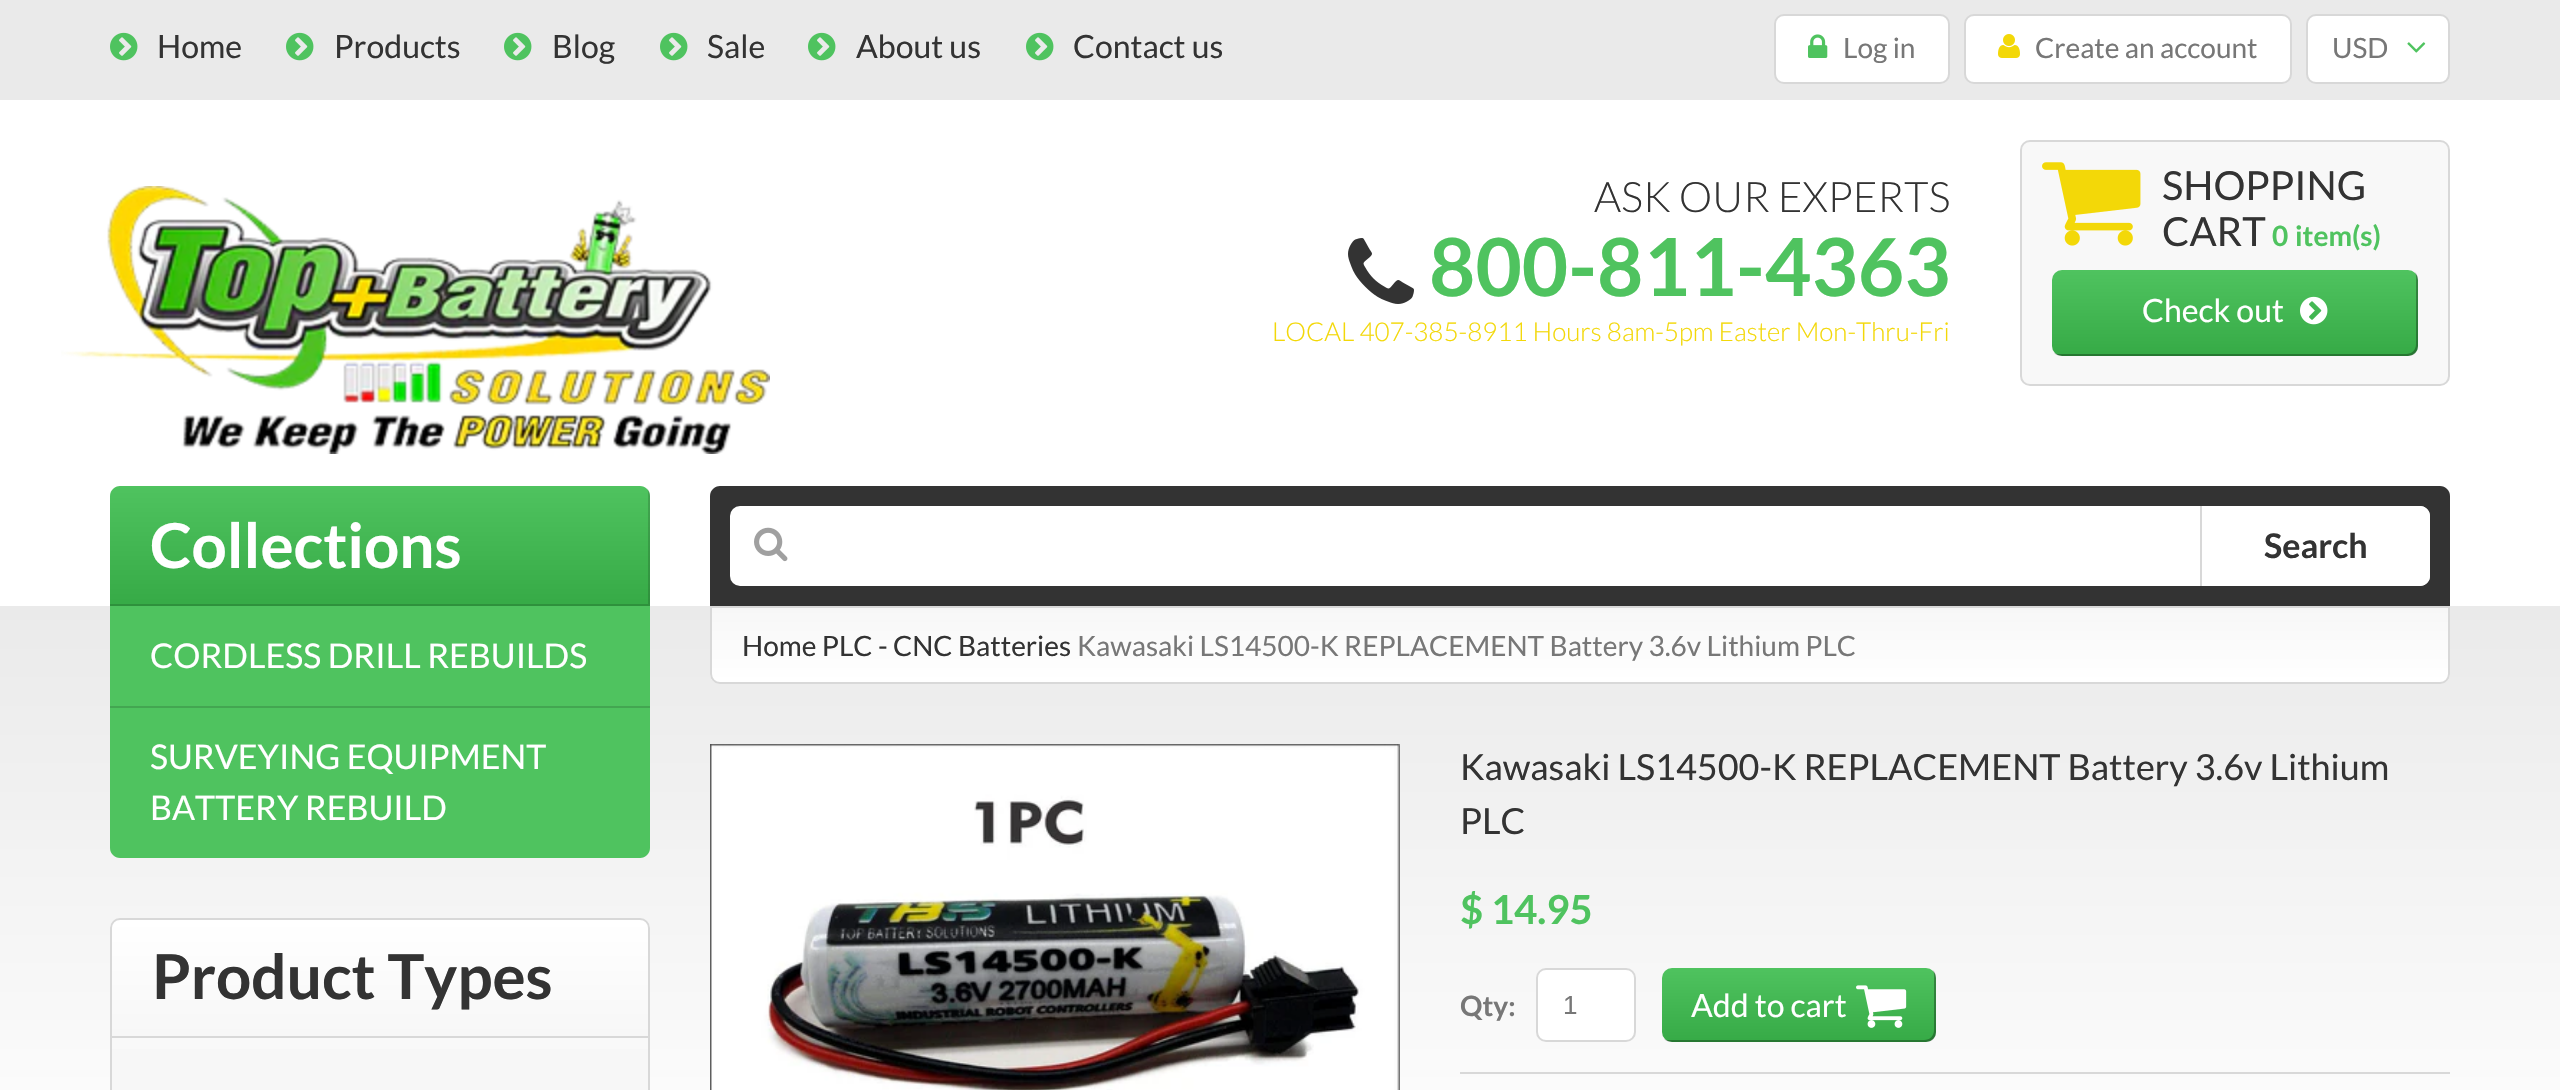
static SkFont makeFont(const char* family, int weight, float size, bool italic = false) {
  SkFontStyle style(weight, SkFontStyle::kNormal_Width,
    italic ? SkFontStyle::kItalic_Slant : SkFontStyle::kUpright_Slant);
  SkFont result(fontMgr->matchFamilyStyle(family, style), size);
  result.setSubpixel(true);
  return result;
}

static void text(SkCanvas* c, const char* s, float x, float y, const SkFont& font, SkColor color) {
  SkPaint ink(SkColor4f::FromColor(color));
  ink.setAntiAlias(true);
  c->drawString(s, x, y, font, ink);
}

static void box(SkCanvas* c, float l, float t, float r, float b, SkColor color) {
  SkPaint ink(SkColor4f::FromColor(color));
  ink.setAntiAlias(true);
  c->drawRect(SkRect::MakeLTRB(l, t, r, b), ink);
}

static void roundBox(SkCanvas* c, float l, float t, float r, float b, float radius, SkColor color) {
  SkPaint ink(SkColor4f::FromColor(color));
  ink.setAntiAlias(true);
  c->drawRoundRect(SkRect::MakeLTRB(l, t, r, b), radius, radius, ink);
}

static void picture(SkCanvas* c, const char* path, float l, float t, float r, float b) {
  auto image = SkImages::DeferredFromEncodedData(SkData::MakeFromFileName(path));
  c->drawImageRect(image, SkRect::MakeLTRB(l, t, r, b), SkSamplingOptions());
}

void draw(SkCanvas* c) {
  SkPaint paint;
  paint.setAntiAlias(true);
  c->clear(0xffffffff);
  box(c, 0, 0, 2560, 100, 0xffeaeaea);
  picture(c, "img_01.png", 110, 32, 138, 61);
  SkFont face1 = makeFont("Lato", 400, 32);
  text(c, "Home", 157, 58, face1, 0xff333333);
  picture(c, "img_01.png", 286, 32, 314, 61);
  text(c, "Products", 334, 58, face1, 0xff333333);
  picture(c, "img_01.png", 504, 32, 532, 61);
  text(c, "Blog", 552, 58, face1, 0xff333333);
  picture(c, "img_01.png", 660, 32, 688, 61);
  text(c, "Sale", 707, 58, face1, 0xff333333);
  picture(c, "img_01.png", 808, 32, 836, 61);
  text(c, "About us", 856, 58, face1, 0xff333333);
  picture(c, "img_01.png", 1026, 32, 1054, 61);
  text(c, "Contact us", 1073, 58, face1, 0xff333333);
  paint.setColor(0xffffffff);
  c->drawRoundRect(SkRect::MakeLTRB(1775, 15, 1949, 83), 9, 9, paint);
  paint.setStyle(SkPaint::kStroke_Style);
  paint.setStrokeWidth(2);
  paint.setColor(0xffd8d8d8);
  c->drawRoundRect(SkRect::MakeLTRB(1775, 15, 1949, 83), 9, 9, paint);
  picture(c, "img_02.png", 1808, 34, 1828, 58);
  SkFont face2 = makeFont("Lato", 400, 28);
  text(c, "Log in", 1843, 58, face2, 0xff777777);
  paint.setStyle(SkPaint::kFill_Style);
  paint.setColor(0xffffffff);
  c->drawRoundRect(SkRect::MakeLTRB(1965, 15, 2291, 83), 9, 9, paint);
  paint.setStyle(SkPaint::kStroke_Style);
  paint.setColor(0xffd8d8d8);
  c->drawRoundRect(SkRect::MakeLTRB(1965, 15, 2291, 83), 9, 9, paint);
  picture(c, "img_03.png", 1998, 34, 2020, 58);
  text(c, "Create an account", 2035, 58, face2, 0xff777777);
  paint.setStyle(SkPaint::kFill_Style);
  paint.setColor(0xffffffff);
  c->drawRoundRect(SkRect::MakeLTRB(2307, 15, 2449, 83), 9, 9, paint);
  paint.setStyle(SkPaint::kStroke_Style);
  paint.setColor(0xffd8d8d8);
  c->drawRoundRect(SkRect::MakeLTRB(2307, 15, 2449, 83), 9, 9, paint);
  text(c, "USD", 2332, 58, face2, 0xff777777);
  picture(c, "img_04.png", 2407, 42, 2426, 53);
  picture(c, "img_05.png", 61, 186, 770, 454);
  SkFont face3 = makeFont("Lato", 300, 42);
  text(c, "ASK OUR EXPERTS", 1594, 212, face3, 0xff333333);
  picture(c, "img_06.png", 1348, 238, 1414, 304);
  SkFont face4 = makeFont("Lato", 700, 80);
  text(c, "800-811-4363", 1429, 296, face4, 0xff4fc35f);
  SkFont face5 = makeFont("Lato", 300, 26);
  text(c, "LOCAL 407-385-8911 Hours 8am-5pm Easter Mon-Thru-Fri", 1272, 341, face5, 0xfff3d808);
  paint.setStyle(SkPaint::kFill_Style);
  paint.setColor(0xfff8f8f8);
  c->drawRoundRect(SkRect::MakeLTRB(2021, 141, 2449, 385), 9, 9, paint);
  paint.setStyle(SkPaint::kStroke_Style);
  paint.setColor(0xffd8d8d8);
  c->drawRoundRect(SkRect::MakeLTRB(2021, 141, 2449, 385), 9, 9, paint);
  picture(c, "img_07.png", 2042, 162, 2141, 246);
  SkFont face6 = makeFont("Lato", 400, 40);
  text(c, "SHOPPING", 2162, 200, face6, 0xff333333);
  text(c, "CART", 2162, 246, face6, 0xff333333);
  SkFont face7 = makeFont("Lato", 700, 28);
  text(c, "0", 2272, 246, face7, 0xff4fc35f);
  text(c, "item(s)", 2295, 246, face7, 0xff4fc35f);
  paint.setStyle(SkPaint::kFill_Style);
  {
    const SkColor colors[] = {0xff4fc35f, 0xff36aa46};
    const float stops[] = {0, 1};
    const SkPoint ends[] = {{2235, 270}, {2235, 356}};
    paint.setShader(SkGradientShader::MakeLinear(ends, colors, stops, 2, SkTileMode::kClamp));
    paint.setAlpha(255);
  }
  c->drawRoundRect(SkRect::MakeLTRB(2052, 270, 2418, 356), 10, 10, paint);
  paint.setShader(nullptr);
  paint.setColor(0x4d000000);
  c->drawPath(SkPathBuilder().moveTo(2054, 353).cubicTo(2056, 355, 2059, 356, 2062, 356).lineTo(2408, 356).cubicTo(2414, 356, 2418, 352, 2418, 346).lineTo(2418, 280).cubicTo(2418, 277, 2417, 274, 2415, 272).cubicTo(2416, 274, 2416, 276, 2416, 278).lineTo(2416, 344).cubicTo(2416, 350, 2412, 354, 2406, 354).lineTo(2060, 354).cubicTo(2058, 354, 2056, 354, 2054, 353).close().detach(), paint);
  text(c, "Check out", 2142, 322, face1, 0xffffffff);
  picture(c, "img_08.png", 2300, 296, 2328, 325);
  paint.setColor(0xff333333);
  c->drawPath(SkPathBuilder().moveTo(720, 486).lineTo(2440, 486).cubicTo(2445.5f, 486, 2450, 490.5f, 2450, 496).lineTo(2450, 606).lineTo(710, 606).lineTo(710, 496).cubicTo(710, 490.5f, 714.5f, 486, 720, 486).close().detach(), paint);
  roundBox(c, 730, 506, 2430, 586, 10, 0xffffffff);
  picture(c, "img_09.png", 754, 527, 788, 562);
  paint.setColor(0xffffffff);
  c->drawPath(SkPathBuilder().moveTo(2200, 506).lineTo(2420, 506).cubicTo(2425.5f, 506, 2430, 510.5f, 2430, 516).lineTo(2430, 576).cubicTo(2430, 581.5f, 2425.5f, 586, 2420, 586).lineTo(2200, 586).close().detach(), paint);
  box(c, 2200, 506, 2202, 586, 0xffd8d8d8);
  SkFont face8 = makeFont("Lato", 700, 34);
  text(c, "Search", 2264, 558, face8, 0xff333333);
  {
    const SkColor colors[] = {0xff4fc35f, 0xff36aa46};
    const float stops[] = {0, 1};
    const SkPoint ends[] = {{380, 486}, {380, 606}};
    paint.setShader(SkGradientShader::MakeLinear(ends, colors, stops, 2, SkTileMode::kClamp));
    paint.setAlpha(255);
  }
  c->drawPath(SkPathBuilder().moveTo(120, 486).lineTo(640, 486).cubicTo(645.5f, 486, 650, 490.5f, 650, 496).lineTo(650, 606).lineTo(110, 606).lineTo(110, 496).cubicTo(110, 490.5f, 114.5f, 486, 120, 486).close().detach(), paint);
  paint.setShader(nullptr);
  paint.setColor(0x26000000);
  c->drawPath(SkPathBuilder().moveTo(110, 604).lineTo(110, 606).lineTo(650, 606).lineTo(650, 496).cubicTo(650, 493, 649, 490, 647, 488).cubicTo(648, 490, 648, 492, 648, 494).lineTo(648, 604).close().detach(), paint);
  SkFont face9 = makeFont("Lato", 700, 62);
  text(c, "Collections", 150, 568, face9, 0xffffffff);
  {
    const SkColor colors[] = {0xffeaeaea, 0xffffffff};
    const float stops[] = {0, 1};
    const SkPoint ends[] = {{1280, 606}, {1280, 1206}};
    paint.setShader(SkGradientShader::MakeLinear(ends, colors, stops, 2, SkTileMode::kClamp));
    paint.setAlpha(255);
  }
  c->drawRect(SkRect::MakeLTRB(0, 606, 2560, 1090), paint);
  paint.setShader(nullptr);
  paint.setColor(0xff4fc35f);
  c->drawPath(SkPathBuilder().moveTo(110, 606).lineTo(650, 606).lineTo(650, 848).cubicTo(650, 853.5f, 645.5f, 858, 640, 858).lineTo(120, 858).cubicTo(114.5f, 858, 110, 853.5f, 110, 848).close().detach(), paint);
  SkFont face10 = makeFont("Lato", 400, 34);
  text(c, "CORDLESS DRILL REBUILDS", 150, 668, face10, 0xffffffff);
  box(c, 110, 706, 650, 708, 0xff43a651);
  text(c, "SURVEYING EQUIPMENT", 150, 769, face10, 0xffffffff);
  text(c, "BATTERY REBUILD", 150, 820, face10, 0xffffffff);
  c->save();
  c->clipPath(SkPathBuilder().moveTo(120, 918).lineTo(640, 918).cubicTo(645.5f, 918, 650, 922.5f, 650, 928).lineTo(650, 1038).lineTo(110, 1038).lineTo(110, 928).cubicTo(110, 922.5f, 114.5f, 918, 120, 918).close().detach(), true);
  {
    const SkColor colors[] = {0xffffffff, 0xfff7f7f7};
    const float stops[] = {0, 1};
    const SkPoint ends[] = {{380, 920}, {380, 1036}};
    paint.setShader(SkGradientShader::MakeLinear(ends, colors, stops, 2, SkTileMode::kClamp));
    paint.setAlpha(255);
  }
  c->drawRect(SkRect::MakeLTRB(110, 920, 650, 1036), paint);
  c->restore();
  paint.setStyle(SkPaint::kStroke_Style);
  paint.setShader(nullptr);
  paint.setColor(0xffd8d8d8);
  c->drawPath(SkPathBuilder().moveTo(120, 919).lineTo(640, 919).cubicTo(645, 919, 649, 923, 649, 928).lineTo(649, 1037).lineTo(111, 1037).lineTo(111, 928).cubicTo(111, 923, 115, 919, 120, 919).close().detach(), paint);
  text(c, "Product Types", 152, 999, face9, 0xff333333);
  box(c, 112, 1049, 648, 1090, 0xfff7f7f7);
  paint.setStyle(SkPaint::kFill_Style);
  c->drawPath(SkPathBuilder(SkPathFillType::kEvenOdd).moveTo(110, 1038).lineTo(650, 1038).lineTo(650, 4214).cubicTo(650, 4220, 646, 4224, 640, 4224).lineTo(120, 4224).cubicTo(114, 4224, 110, 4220, 110, 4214).close().moveTo(112, 1038).lineTo(648, 1038).lineTo(648, 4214).cubicTo(648, 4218, 644, 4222, 640, 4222).lineTo(120, 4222).cubicTo(116, 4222, 112, 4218, 112, 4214).close().detach(), paint);
  c->save();
  c->clipPath(SkPathBuilder().moveTo(710, 606).lineTo(2450, 606).lineTo(2450, 674).cubicTo(2450, 679.5f, 2445.5f, 684, 2440, 684).lineTo(720, 684).cubicTo(714.5f, 684, 710, 679.5f, 710, 674).close().detach(), true);
  {
    const SkColor colors[] = {0xfff7f7f7, 0xffffffff};
    const float stops[] = {0, 1};
    const SkPoint ends[] = {{1580, 608}, {1580, 682}};
    paint.setShader(SkGradientShader::MakeLinear(ends, colors, stops, 2, SkTileMode::kClamp));
    paint.setAlpha(255);
  }
  c->drawRect(SkRect::MakeLTRB(710, 608, 2450, 682), paint);
  c->restore();
  paint.setStyle(SkPaint::kStroke_Style);
  paint.setShader(nullptr);
  paint.setColor(0xffd8d8d8);
  c->drawPath(SkPathBuilder().moveTo(711, 607).lineTo(2449, 607).lineTo(2449, 674).cubicTo(2449, 679, 2445, 683, 2440, 683).lineTo(720, 683).cubicTo(715, 683, 711, 679, 711, 674).close().detach(), paint);
  text(c, "Home PLC - CNC Batteries", 742, 656, face2, 0xff333333);
  text(c, "Kawasaki LS14500-K REPLACEMENT Battery 3.6v Lithium PLC", 1077, 656, face2, 0xff777777);
  picture(c, "img_10.png", 710, 744, 1400, 1090);
  SkFont face11 = makeFont("Lato", 400, 36);
  text(c, "Kawasaki LS14500-K REPLACEMENT Battery 3.6v Lithium", 1460, 780, face11, 0xff333333);
  text(c, "PLC", 1460, 834, face11, 0xff333333);
  SkFont face12 = makeFont("Lato", 700, 40);
  text(c, "$ 14.95", 1460, 924, face12, 0xff4fc35f);
  text(c, "Qty:", 1460, 1016, face7, 0xff777777);
  paint.setStyle(SkPaint::kFill_Style);
  paint.setColor(0xffffffff);
  c->drawRoundRect(SkRect::MakeLTRB(1537, 969, 1635, 1041), 9, 9, paint);
  paint.setStyle(SkPaint::kStroke_Style);
  paint.setColor(0xffd8d8d8);
  c->drawRoundRect(SkRect::MakeLTRB(1537, 969, 1635, 1041), 9, 9, paint);
  SkFont face13 = makeFont("Liberation Sans", 400, 26);
  text(c, "1", 1563, 1014, face13, 0xff777777);
  paint.setStyle(SkPaint::kFill_Style);
  {
    const SkColor colors[] = {0xff4fc35f, 0xff36aa46};
    const float stops[] = {0, 1};
    const SkPoint ends[] = {{1799, 968}, {1799, 1042}};
    paint.setShader(SkGradientShader::MakeLinear(ends, colors, stops, 2, SkTileMode::kClamp));
    paint.setAlpha(255);
  }
  c->drawRoundRect(SkRect::MakeLTRB(1662, 968, 1936, 1042), 10, 10, paint);
  paint.setShader(nullptr);
  paint.setColor(0x4d000000);
  c->drawPath(SkPathBuilder().moveTo(1664, 1039).cubicTo(1666, 1041, 1669, 1042, 1672, 1042).lineTo(1926, 1042).cubicTo(1932, 1042, 1936, 1038, 1936, 1032).lineTo(1936, 978).cubicTo(1936, 975, 1935, 972, 1933, 970).cubicTo(1934, 972, 1934, 974, 1934, 976).lineTo(1934, 1030).cubicTo(1934, 1036, 1930, 1040, 1924, 1040).lineTo(1670, 1040).cubicTo(1668, 1040, 1666, 1040, 1664, 1039).close().detach(), paint);
  text(c, "Add to cart", 1691, 1017, face1, 0xffffffff);
  picture(c, "img_11.png", 1856, 985, 1907, 1028);
  box(c, 1460, 1072, 2450, 1074, 0xffd8d8d8);
}
